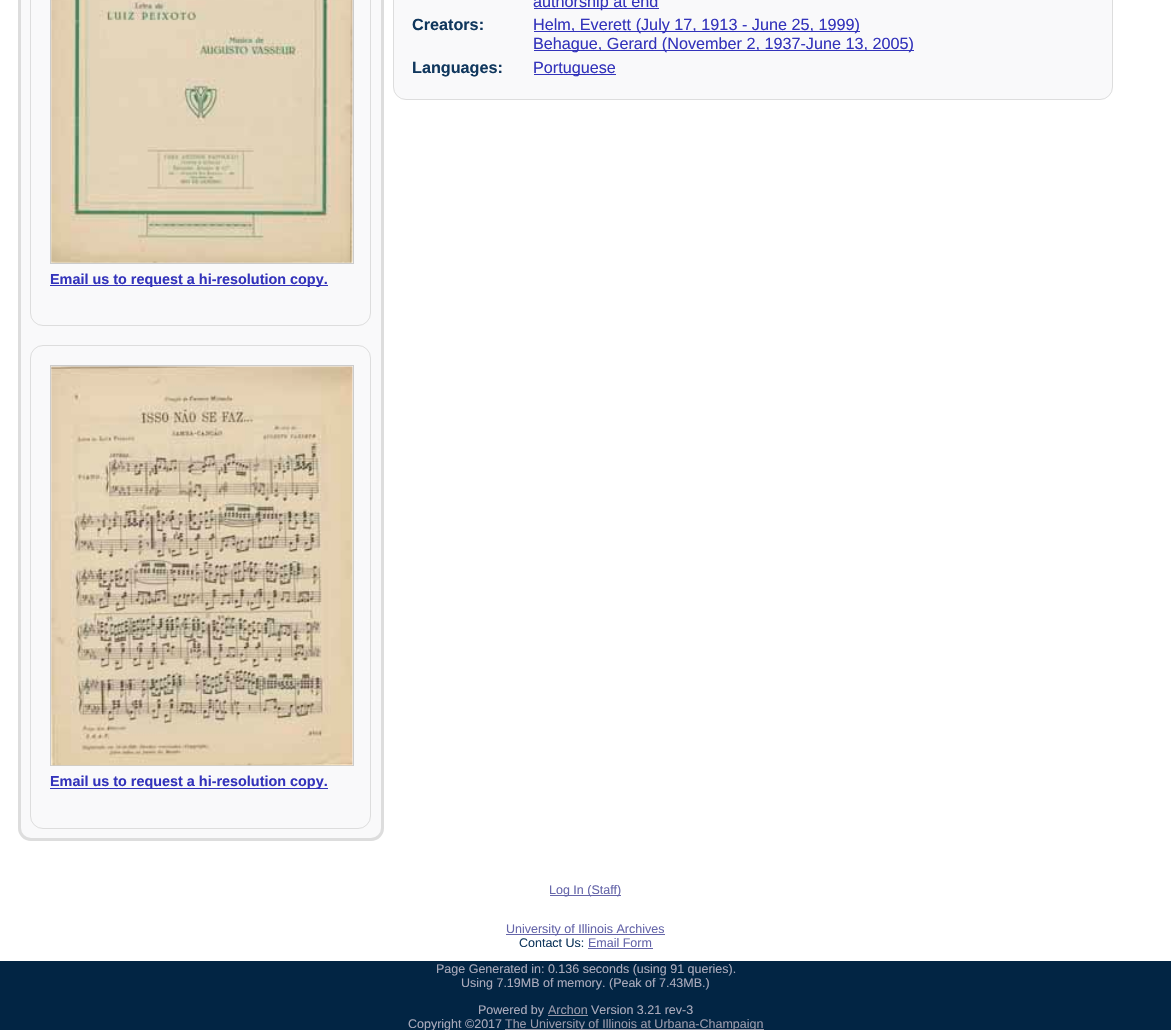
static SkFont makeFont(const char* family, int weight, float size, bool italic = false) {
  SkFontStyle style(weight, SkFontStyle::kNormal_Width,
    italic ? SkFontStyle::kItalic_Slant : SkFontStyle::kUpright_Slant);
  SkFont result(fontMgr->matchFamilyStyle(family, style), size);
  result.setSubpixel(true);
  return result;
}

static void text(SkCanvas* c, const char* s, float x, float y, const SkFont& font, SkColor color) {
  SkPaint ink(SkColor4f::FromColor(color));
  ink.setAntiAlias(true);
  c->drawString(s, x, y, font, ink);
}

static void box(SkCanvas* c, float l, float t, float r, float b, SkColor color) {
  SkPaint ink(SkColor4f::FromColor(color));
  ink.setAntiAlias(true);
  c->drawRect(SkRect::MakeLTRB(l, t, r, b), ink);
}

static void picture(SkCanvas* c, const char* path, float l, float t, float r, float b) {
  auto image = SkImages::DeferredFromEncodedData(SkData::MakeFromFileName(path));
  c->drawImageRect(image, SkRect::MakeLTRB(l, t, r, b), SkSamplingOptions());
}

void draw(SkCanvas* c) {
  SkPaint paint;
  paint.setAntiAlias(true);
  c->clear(0xffffffff);
  paint.setColor(0xfff9f9fa);
  c->drawRoundRect(SkRect::MakeLTRB(393.5f, -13.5f, 1112.5f, 99.5f), 12.5f, 12.5f, paint);
  paint.setStyle(SkPaint::kStroke_Style);
  paint.setStrokeWidth(1);
  paint.setColor(0xffdddddd);
  c->drawRoundRect(SkRect::MakeLTRB(393.5f, -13.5f, 1112.5f, 99.5f), 12.5f, 12.5f, paint);
  box(c, 534, 8, 659, 9, 0xff3333bb);
  SkFont face1 = makeFont("Liberation Sans", 400, 16.2f);
  text(c, "authorship at end", 533, 7, face1, 0xff3333bb);
  SkFont face2 = makeFont("Liberation Sans", 700, 16.2f);
  text(c, "Creators:", 412, 30, face2, 0xff10375d);
  box(c, 534, 31, 860, 32, 0xff3333bb);
  text(c, "Helm, Everett (July 17, 1913 - June 25, 1999)", 533, 30, face1, 0xff3333bb);
  box(c, 534, 50, 914, 51, 0xff3333bb);
  text(c, "Behague, Gerard (November 2, 1937-June 13, 2005)", 533, 49, face1, 0xff3333bb);
  text(c, "Languages:", 412, 73, face2, 0xff10375d);
  box(c, 534, 74, 616, 75, 0xff3333bb);
  text(c, "Portuguese", 533, 73, face1, 0xff3333bb);
  paint.setStyle(SkPaint::kFill_Style);
  paint.setColor(0xfff9f9fa);
  c->drawRoundRect(SkRect::MakeLTRB(19.5f, -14.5f, 382.5f, 839.5f), 11.5f, 11.5f, paint);
  paint.setStyle(SkPaint::kStroke_Style);
  paint.setStrokeWidth(3);
  paint.setColor(0xffdddddd);
  c->drawRoundRect(SkRect::MakeLTRB(19.5f, -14.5f, 382.5f, 839.5f), 11.5f, 11.5f, paint);
  paint.setStrokeWidth(1);
  c->drawRoundRect(SkRect::MakeLTRB(30.5f, -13.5f, 370.5f, 325.5f), 12.5f, 12.5f, paint);
  paint.setColor(0xffcccccc);
  c->drawRect(SkRect::MakeLTRB(50.5f, -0.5f, 353.5f, 263.5f), paint);
  picture(c, "img_01.png", 51, 0, 353, 263);
  box(c, 50, 285, 328, 286, 0xff3333bb);
  SkFont face3 = makeFont("Liberation Sans", 700, 14.4f);
  text(c, "Email us to request a hi-resolution copy.", 50, 284, face3, 0xff3333bb);
  paint.setColor(0xffdddddd);
  c->drawRoundRect(SkRect::MakeLTRB(30.5f, 345.5f, 370.5f, 828.5f), 12.5f, 12.5f, paint);
  paint.setColor(0xffcccccc);
  c->drawRect(SkRect::MakeLTRB(50.5f, 365.5f, 353.5f, 765.5f), paint);
  picture(c, "img_02.png", 51, 366, 353, 766);
  box(c, 50, 788, 328, 789, 0xff3333bb);
  text(c, "Email us to request a hi-resolution copy.", 50, 786, face3, 0xff3333bb);
  box(c, 550, 895, 621, 896, 0xff6666aa);
  SkFont face4 = makeFont("Liberation Sans", 400, 12.5f);
  text(c, "Log In (Staff)", 549, 894, face4, 0xff6666aa);
  box(c, 506, 934, 665, 935, 0xff6666aa);
  text(c, "University of Illinois Archives", 506, 933, face4, 0xff6666aa);
  text(c, "Contact Us:", 519, 947, face4, 0xff10375d);
  text(c, "Email Form", 588, 947, face4, 0xff6666aa);
  box(c, 588, 948, 653, 949, 0xff6666aa);
  box(c, 0, 961, 1171, 1030, 0xff022544);
  text(c, "Page Generated in: 0.136 seconds (using 91 queries).", 436, 973, face4, 0xffaaaabb);
  text(c, "Using 7.19MB of memory. (Peak of 7.43MB.)", 461, 987, face4, 0xffaaaabb);
  text(c, "Powered by", 478, 1014, face4, 0xffaaaabb);
  text(c, "Archon", 548, 1014, face4, 0xff9999aa);
  box(c, 548, 1015, 588, 1016, 0xff9999aa);
  text(c, "Version 3.21 rev-3", 591, 1014, face4, 0xffaaaabb);
  text(c, "Copyright ©2017", 408, 1028, face4, 0xffaaaabb);
  box(c, 505, 1029, 764, 1030, 0xff9999aa);
  text(c, "The University of Illinois at Urbana-Champaign", 505, 1028, face4, 0xff9999aa);
}
